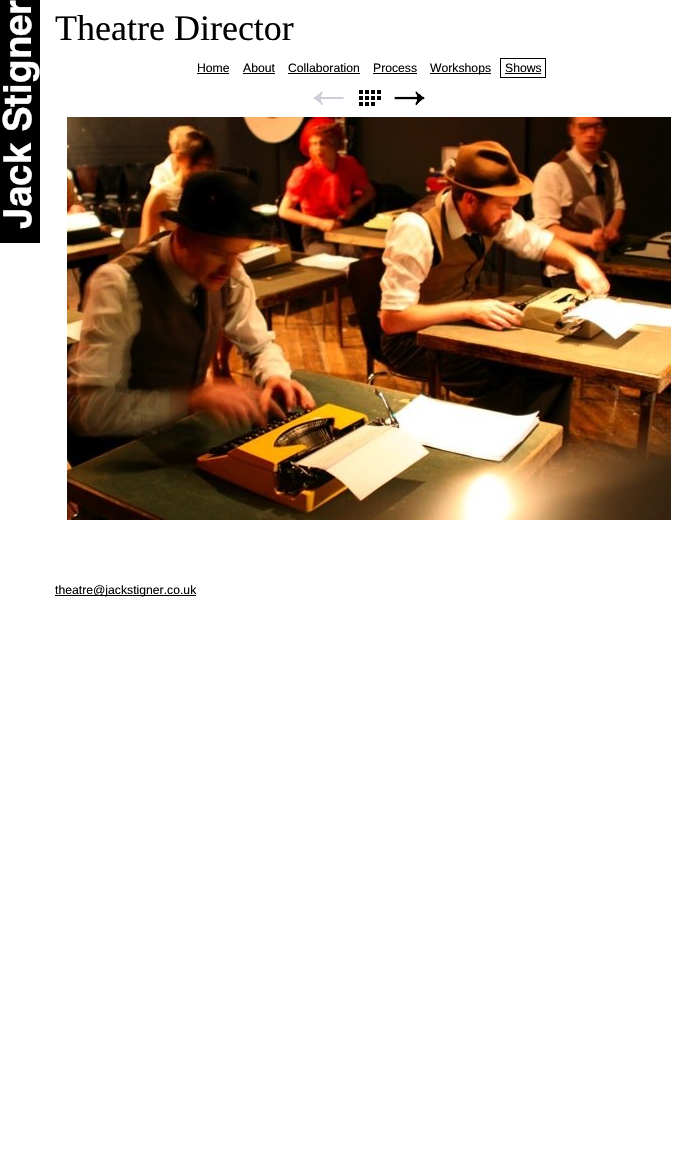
static SkFont makeFont(const char* family, int weight, float size, bool italic = false) {
  SkFontStyle style(weight, SkFontStyle::kNormal_Width,
    italic ? SkFontStyle::kItalic_Slant : SkFontStyle::kUpright_Slant);
  SkFont result(fontMgr->matchFamilyStyle(family, style), size);
  result.setSubpixel(true);
  return result;
}

static void text(SkCanvas* c, const char* s, float x, float y, const SkFont& font, SkColor color) {
  SkPaint ink(SkColor4f::FromColor(color));
  ink.setAntiAlias(true);
  c->drawString(s, x, y, font, ink);
}

static void box(SkCanvas* c, float l, float t, float r, float b, SkColor color) {
  SkPaint ink(SkColor4f::FromColor(color));
  ink.setAntiAlias(true);
  c->drawRect(SkRect::MakeLTRB(l, t, r, b), ink);
}

static void picture(SkCanvas* c, const char* path, float l, float t, float r, float b) {
  auto image = SkImages::DeferredFromEncodedData(SkData::MakeFromFileName(path));
  c->drawImageRect(image, SkRect::MakeLTRB(l, t, r, b), SkSamplingOptions());
}

void draw(SkCanvas* c) {
  SkPaint paint;
  paint.setAntiAlias(true);
  c->clear(0xffffffff);
  picture(c, "img_01.png", 0, 0, 40, 243);
  SkFont face1 = makeFont("Liberation Serif", 400, 36);
  text(c, "Theatre Director", 55, 40, face1, 0xff000000);
  SkFont face2 = makeFont("Liberation Sans", 400, 12.2f);
  text(c, "Home", 197, 72, face2, 0xff000000);
  box(c, 197, 73, 229, 74, 0xff000000);
  text(c, "About", 243, 72, face2, 0xff000000);
  box(c, 243, 73, 275, 74, 0xff000000);
  text(c, "Collaboration", 288, 72, face2, 0xff000000);
  box(c, 288, 73, 360, 74, 0xff000000);
  text(c, "Process", 373, 72, face2, 0xff000000);
  box(c, 373, 73, 417, 74, 0xff000000);
  box(c, 430, 73, 491, 74, 0xff000000);
  text(c, "Workshops", 430, 72, face2, 0xff000000);
  paint.setStyle(SkPaint::kStroke_Style);
  paint.setStrokeWidth(1);
  paint.setColor(0xff000000);
  c->drawRect(SkRect::MakeLTRB(500.5f, 58.5f, 545.5f, 77.5f), paint);
  text(c, "Shows", 505, 72, face2, 0xff000000);
  box(c, 505, 73, 541, 74, 0xff000000);
  picture(c, "img_02.png", 313, 91, 344, 105);
  picture(c, "img_03.png", 359, 90, 381, 106);
  picture(c, "img_04.png", 394, 91, 425, 105);
  picture(c, "img_05.png", 67, 117, 671, 520);
  box(c, 55, 595, 196, 596, 0xff000000);
  text(c, "theatre@jackstigner.co.uk", 55, 594, face2, 0xff000000);
}
